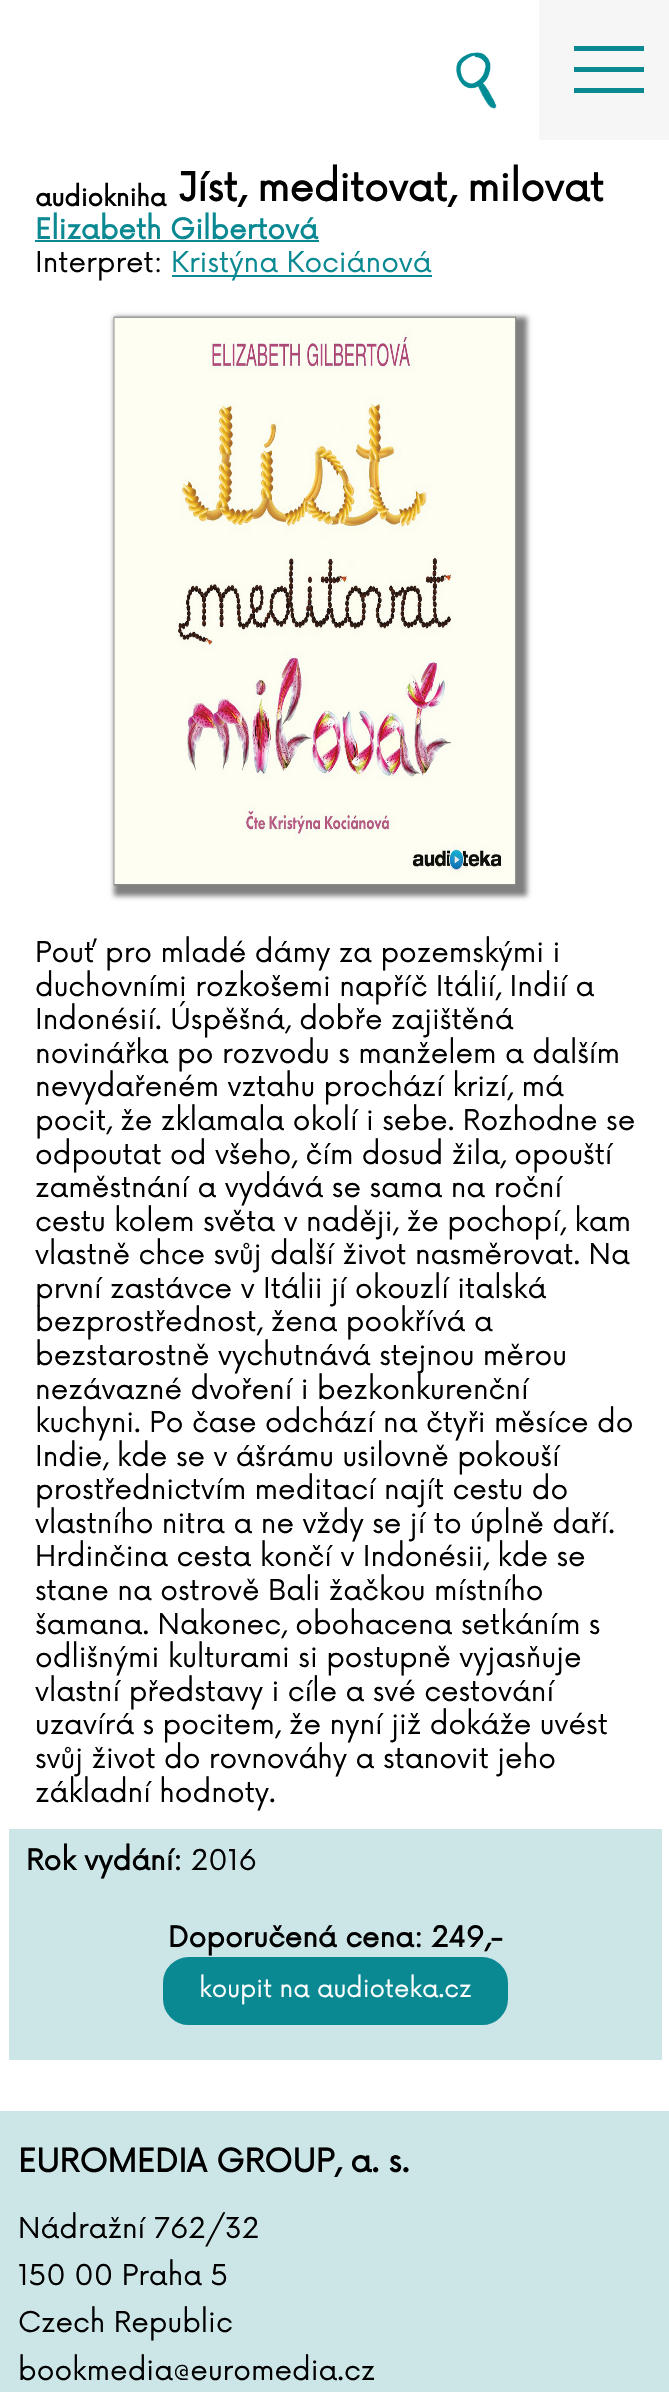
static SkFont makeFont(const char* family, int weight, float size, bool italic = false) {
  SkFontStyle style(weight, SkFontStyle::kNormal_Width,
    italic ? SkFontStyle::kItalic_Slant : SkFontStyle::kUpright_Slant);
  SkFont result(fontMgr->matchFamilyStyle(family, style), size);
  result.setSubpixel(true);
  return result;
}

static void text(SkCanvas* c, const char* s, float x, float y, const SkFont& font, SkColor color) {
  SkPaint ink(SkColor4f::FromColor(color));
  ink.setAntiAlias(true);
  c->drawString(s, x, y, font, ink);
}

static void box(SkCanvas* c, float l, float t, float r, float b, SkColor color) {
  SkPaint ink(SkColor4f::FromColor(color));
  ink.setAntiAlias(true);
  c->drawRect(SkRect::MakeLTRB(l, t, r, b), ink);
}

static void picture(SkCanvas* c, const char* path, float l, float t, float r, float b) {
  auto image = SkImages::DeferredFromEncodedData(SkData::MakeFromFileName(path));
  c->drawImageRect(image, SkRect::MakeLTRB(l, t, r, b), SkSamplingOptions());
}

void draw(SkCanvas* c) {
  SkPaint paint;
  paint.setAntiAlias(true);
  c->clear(0xffffffff);
  picture(c, "img_01.png", 456, 52, 497, 109);
  box(c, 539, 0, 669, 140, 0xfff6f6f6);
  box(c, 574, 46, 644, 51, 0xff0a8993);
  box(c, 574, 67, 644, 72, 0xff0a8993);
  box(c, 574, 88, 644, 93, 0xff0a8993);
  SkFont face1 = makeFont("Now", 700, 24.5f);
  text(c, "audiokniha", 35, 206, face1, 0xff000000);
  SkFont face2 = makeFont("Now", 700, 38.5f);
  text(c, "Jíst, meditovat, milovat", 178, 201, face2, 0xff000000);
  SkFont face3 = makeFont("Now", 700, 28);
  text(c, "Elizabeth Gilbertová", 35, 239, face3, 0xff0a8993);
  box(c, 35, 240, 319, 242, 0xff0a8993);
  SkFont face4 = makeFont("Now", 400, 28);
  text(c, "Interpret:", 35, 272, face4, 0xff000000);
  box(c, 172, 275, 432, 277, 0xff0a8993);
  text(c, "Kristýna Kociánová", 171, 272, face4, 0xff0a8993);
  paint.setColor(0xff808080);
  paint.setMaskFilter(SkMaskFilter::MakeBlur(kNormal_SkBlurStyle, 2.5f));
  c->drawRect(SkRect::MakeLTRB(114, 317, 527, 896), paint);
  paint.setMaskFilter(nullptr);
  picture(c, "img_02.png", 113, 316, 517, 886);
  text(c, "Pouť pro mladé dámy za pozemskými i", 35, 962, face4, 0xff000000);
  text(c, "duchovními rozkošemi napříč Itálií, Indií a", 35, 996, face4, 0xff000000);
  text(c, "Indonésií. Úspěšná, dobře zajištěná", 35, 1029, face4, 0xff000000);
  text(c, "novinářka po rozvodu s manželem a dalším", 35, 1063, face4, 0xff000000);
  text(c, "nevydařeném vztahu prochází krizí, má", 35, 1096, face4, 0xff000000);
  text(c, "pocit, že zklamala okolí i sebe. Rozhodne se", 35, 1130, face4, 0xff000000);
  text(c, "odpoutat od všeho, čím dosud žila, opouští", 35, 1164, face4, 0xff000000);
  text(c, "zaměstnání a vydává se sama na roční", 35, 1197, face4, 0xff000000);
  text(c, "cestu kolem světa v naději, že pochopí, kam", 35, 1231, face4, 0xff000000);
  text(c, "vlastně chce svůj další život nasměrovat. Na", 35, 1264, face4, 0xff000000);
  text(c, "první zastávce v Itálii jí okouzlí italská", 35, 1298, face4, 0xff000000);
  text(c, "bezprostřednost, žena pookřívá a", 35, 1331, face4, 0xff000000);
  text(c, "bezstarostně vychutnává stejnou měrou", 35, 1365, face4, 0xff000000);
  text(c, "nezávazné dvoření i bezkonkurenční", 35, 1399, face4, 0xff000000);
  text(c, "kuchyni. Po čase odchází na čtyři měsíce do", 35, 1432, face4, 0xff000000);
  text(c, "Indie, kde se v ášrámu usilovně pokouší", 35, 1466, face4, 0xff000000);
  text(c, "prostřednictvím meditací najít cestu do", 35, 1499, face4, 0xff000000);
  text(c, "vlastního nitra a ne vždy se jí to úplně daří.", 35, 1533, face4, 0xff000000);
  text(c, "Hrdinčina cesta končí v Indonésii, kde se", 35, 1566, face4, 0xff000000);
  text(c, "stane na ostrově Bali žačkou místního", 35, 1600, face4, 0xff000000);
  text(c, "šamana. Nakonec, obohacena setkáním s", 35, 1634, face4, 0xff000000);
  text(c, "odlišnými kulturami si postupně vyjasňuje", 35, 1667, face4, 0xff000000);
  text(c, "vlastní představy i cíle a své cestování", 35, 1701, face4, 0xff000000);
  text(c, "uzavírá s pocitem, že nyní již dokáže uvést", 35, 1734, face4, 0xff000000);
  text(c, "svůj život do rovnováhy a stanovit jeho", 35, 1768, face4, 0xff000000);
  text(c, "základní hodnoty.", 35, 1802, face4, 0xff000000);
  box(c, 9, 1829, 662, 2060, 0xffcce5e7);
  text(c, "Rok vydání:", 26, 1870, face3, 0xff000000);
  text(c, "2016", 191, 1870, face4, 0xff000000);
  text(c, "Doporučená cena: 249,-", 168, 1947, face3, 0xff000000);
  paint.setColor(0xff0a8993);
  c->drawRoundRect(SkRect::MakeLTRB(164, 1958, 507, 2024), 25, 25, paint);
  paint.setStyle(SkPaint::kStroke_Style);
  paint.setStrokeWidth(2);
  c->drawRoundRect(SkRect::MakeLTRB(164, 1958, 507, 2024), 25, 25, paint);
  SkFont face5 = makeFont("Now", 400, 24.5f);
  text(c, "koupit na audioteka.cz", 199, 1997, face5, 0xffffffff);
  box(c, 0, 2111, 669, 2392, 0xffcce5e7);
  SkFont face6 = makeFont("Now", 700, 31.5f);
  text(c, "EUROMEDIA GROUP, a. s.", 18, 2172, face6, 0xff000000);
  text(c, "Nádražní 762/32", 18, 2238, face4, 0xff000000);
  text(c, "150 00 Praha 5", 18, 2285, face4, 0xff000000);
  text(c, "Czech Republic", 18, 2332, face4, 0xff000000);
  text(c, "bookmedia@euromedia.cz", 18, 2380, face4, 0xff000000);
}
